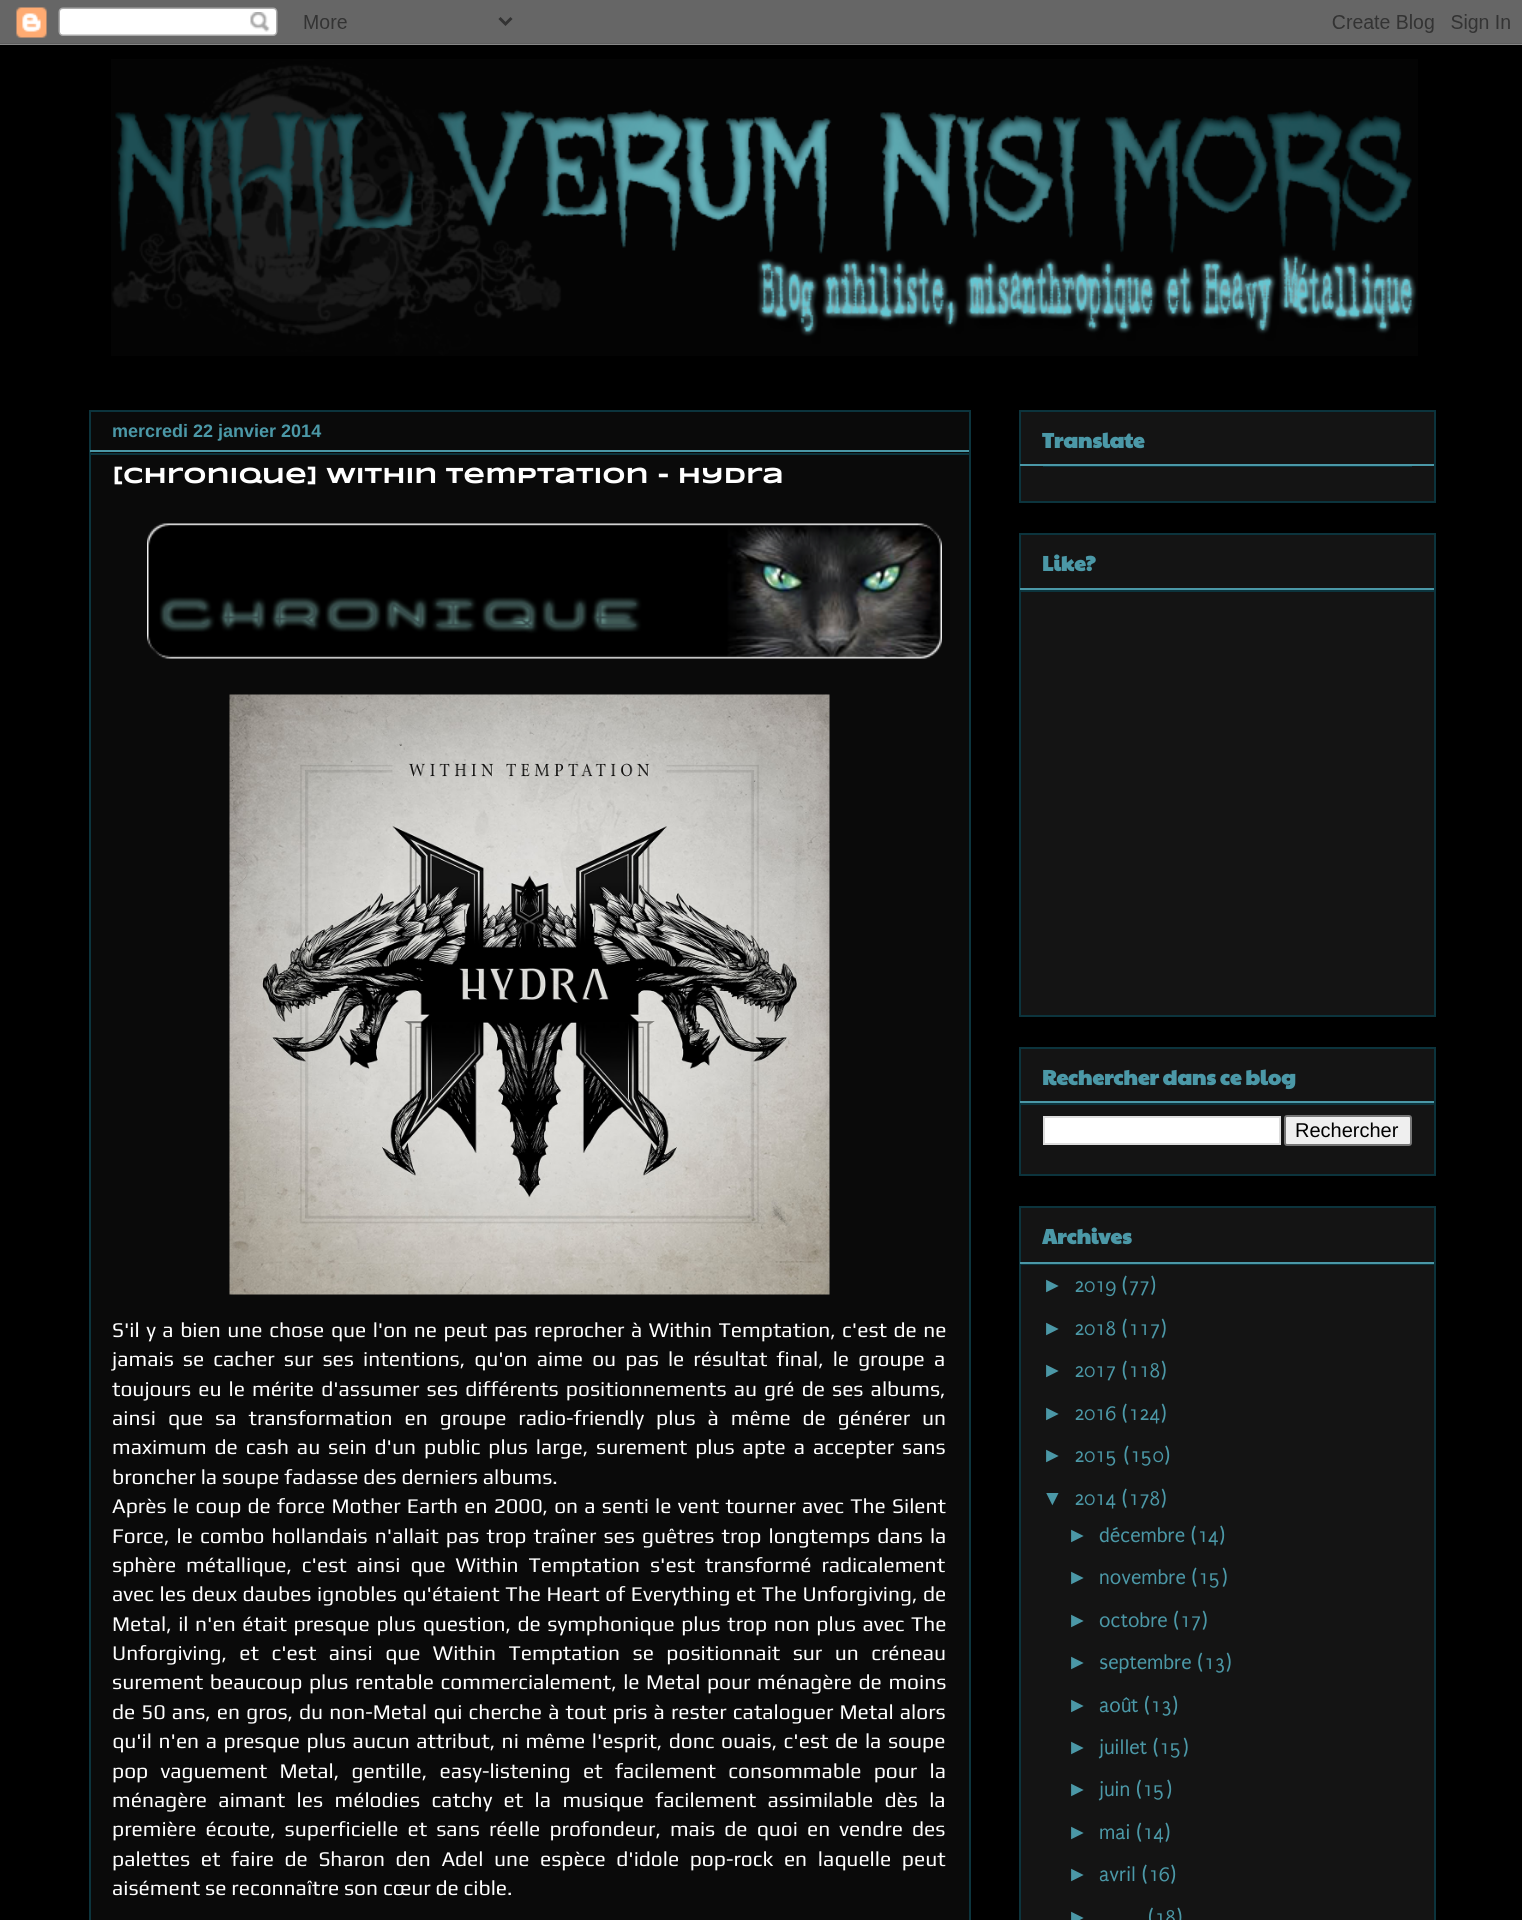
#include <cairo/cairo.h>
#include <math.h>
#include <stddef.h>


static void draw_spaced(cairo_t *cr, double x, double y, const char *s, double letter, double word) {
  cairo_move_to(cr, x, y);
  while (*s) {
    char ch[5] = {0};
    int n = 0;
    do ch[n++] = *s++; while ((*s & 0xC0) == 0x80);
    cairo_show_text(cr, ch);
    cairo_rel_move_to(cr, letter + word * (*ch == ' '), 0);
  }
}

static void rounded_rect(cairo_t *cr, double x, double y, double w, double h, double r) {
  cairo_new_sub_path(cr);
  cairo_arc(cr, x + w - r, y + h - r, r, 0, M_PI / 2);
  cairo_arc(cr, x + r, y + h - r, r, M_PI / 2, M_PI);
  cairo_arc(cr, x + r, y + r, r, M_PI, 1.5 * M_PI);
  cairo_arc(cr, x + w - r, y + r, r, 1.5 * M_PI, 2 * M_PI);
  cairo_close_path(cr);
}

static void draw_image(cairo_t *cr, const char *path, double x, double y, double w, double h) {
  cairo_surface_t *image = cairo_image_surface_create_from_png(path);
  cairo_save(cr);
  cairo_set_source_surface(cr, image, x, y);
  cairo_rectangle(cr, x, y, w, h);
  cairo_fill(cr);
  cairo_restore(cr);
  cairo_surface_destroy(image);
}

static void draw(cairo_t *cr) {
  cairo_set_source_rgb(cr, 0, 0, 0);
  cairo_paint(cr);
  draw_image(cr, "images/1.png", 0, 0, 1522, 45);
  draw_image(cr, "images/2.png", 111, 59, 1307, 297);
  cairo_set_source_rgb(cr, 10 / 255.0, 10 / 255.0, 10 / 255.0);
  cairo_rectangle(cr, 90, 411, 880, 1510);
  cairo_fill_preserve(cr);
  cairo_set_source_rgb(cr, 12 / 255.0, 52 / 255.0, 61 / 255.0);
  cairo_stroke(cr);
  cairo_set_source_rgb(cr, 75 / 255.0, 152 / 255.0, 167 / 255.0);
  cairo_rectangle(cr, 90, 450, 879, 2);
  cairo_fill(cr);
  cairo_set_source_rgb(cr, 12 / 255.0, 52 / 255.0, 61 / 255.0);
  cairo_rectangle(cr, 90, 453, 879, 2);
  cairo_fill(cr);
  draw_image(cr, "images/3.png", 147, 523, 795, 136);
  draw_image(cr, "images/4.png", 229, 694, 601, 601);
  cairo_set_source_rgb(cr, 20 / 255.0, 20 / 255.0, 20 / 255.0);
  cairo_rectangle(cr, 1020, 411, 415, 91);
  cairo_fill_preserve(cr);
  cairo_set_source_rgb(cr, 12 / 255.0, 52 / 255.0, 61 / 255.0);
  cairo_stroke(cr);
  cairo_set_source_rgb(cr, 75 / 255.0, 152 / 255.0, 167 / 255.0);
  cairo_rectangle(cr, 1020, 464, 414, 2);
  cairo_fill(cr);
  cairo_set_source_rgb(cr, 12 / 255.0, 52 / 255.0, 61 / 255.0);
  cairo_rectangle(cr, 1043, 466, 369, 1);
  cairo_fill(cr);
  cairo_set_source_rgb(cr, 20 / 255.0, 20 / 255.0, 20 / 255.0);
  cairo_rectangle(cr, 1020, 534, 415, 482);
  cairo_fill_preserve(cr);
  cairo_set_source_rgb(cr, 12 / 255.0, 52 / 255.0, 61 / 255.0);
  cairo_stroke(cr);
  cairo_set_source_rgb(cr, 75 / 255.0, 152 / 255.0, 167 / 255.0);
  cairo_rectangle(cr, 1020, 588, 414, 2);
  cairo_fill(cr);
  cairo_set_source_rgb(cr, 12 / 255.0, 52 / 255.0, 61 / 255.0);
  cairo_rectangle(cr, 1020, 590, 414, 2);
  cairo_fill(cr);
  cairo_set_source_rgb(cr, 20 / 255.0, 20 / 255.0, 20 / 255.0);
  cairo_rectangle(cr, 1020, 1048, 415, 127);
  cairo_fill_preserve(cr);
  cairo_set_source_rgb(cr, 12 / 255.0, 52 / 255.0, 61 / 255.0);
  cairo_stroke(cr);
  cairo_set_source_rgb(cr, 75 / 255.0, 152 / 255.0, 167 / 255.0);
  cairo_rectangle(cr, 1020, 1101, 414, 2);
  cairo_fill(cr);
  cairo_set_source_rgb(cr, 12 / 255.0, 52 / 255.0, 61 / 255.0);
  cairo_rectangle(cr, 1020, 1103, 414, 2);
  cairo_fill(cr);
  cairo_set_source_rgb(cr, 1, 1, 1);
  cairo_rectangle(cr, 1044, 1117, 236, 27);
  cairo_fill_preserve(cr);
  cairo_set_source_rgb(cr, 221 / 255.0, 221 / 255.0, 221 / 255.0);
  cairo_stroke(cr);
  cairo_set_source_rgb(cr, 239 / 255.0, 239 / 255.0, 239 / 255.0);
  rounded_rect(cr, 1285, 1116, 126, 29, 2);
  cairo_fill_preserve(cr);
  cairo_set_source_rgb(cr, 118 / 255.0, 118 / 255.0, 118 / 255.0);
  cairo_stroke(cr);
  cairo_set_source_rgb(cr, 20 / 255.0, 20 / 255.0, 20 / 255.0);
  cairo_rectangle(cr, 1020, 1207, 415, 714);
  cairo_fill_preserve(cr);
  cairo_set_source_rgb(cr, 12 / 255.0, 52 / 255.0, 61 / 255.0);
  cairo_stroke(cr);
  cairo_set_source_rgb(cr, 75 / 255.0, 152 / 255.0, 167 / 255.0);
  cairo_rectangle(cr, 1020, 1262, 414, 2);
  cairo_fill(cr);
  cairo_set_source_rgb(cr, 12 / 255.0, 52 / 255.0, 61 / 255.0);
  cairo_rectangle(cr, 1020, 1264, 414, 1);
  cairo_fill(cr);
  cairo_select_font_face(cr, "Liberation Sans", CAIRO_FONT_SLANT_NORMAL, CAIRO_FONT_WEIGHT_BOLD);
  cairo_set_font_size(cr, 18);
  cairo_set_source_rgb(cr, 75 / 255.0, 152 / 255.0, 167 / 255.0);
  cairo_move_to(cr, 112, 437);
  cairo_show_text(cr, "mercredi 22 janvier 2014");
  cairo_select_font_face(cr, "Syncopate", CAIRO_FONT_SLANT_NORMAL, CAIRO_FONT_WEIGHT_BOLD);
  cairo_set_font_size(cr, 22.5);
  cairo_set_source_rgb(cr, 1, 1, 1);
  cairo_move_to(cr, 112, 483);
  cairo_show_text(cr, "[Chronique] Within Temptation - Hydra");
  cairo_select_font_face(cr, "Play", CAIRO_FONT_SLANT_NORMAL, CAIRO_FONT_WEIGHT_NORMAL);
  cairo_set_font_size(cr, 21);
  draw_spaced(cr, 112, 1337, "S'il y a bien une chose que l'on ne peut pas reprocher à Within Temptation, c'est de ne", 0, 1.7);
  draw_spaced(cr, 112, 1366, "jamais se cacher sur ses intentions, qu'on aime ou pas le résultat final, le groupe a", 0, 4.25);
  draw_spaced(cr, 112, 1396, "toujours eu le mérite d'assumer ses différents positionnements au gré de ses albums,", 0, 2.25);
  draw_spaced(cr, 112, 1425, "ainsi que sa transformation en groupe radio-friendly plus à même de générer un", 0, 7.1);
  draw_spaced(cr, 112, 1454, "maximum de cash au sein d'un public plus large, surement plus apte a accepter sans", 0, 3.1);
  cairo_move_to(cr, 112, 1484);
  cairo_show_text(cr, "broncher la soupe fadasse des derniers albums.");
  draw_spaced(cr, 112, 1513, "Après le coup de force Mother Earth en 2000, on a senti le vent tourner avec The Silent", 0, 1.4);
  draw_spaced(cr, 112, 1543, "Force, le combo hollandais n'allait pas trop traîner ses guêtres trop longtemps dans la", 0, 2.25);
  draw_spaced(cr, 112, 1572, "sphère métallique, c'est ainsi que Within Temptation s'est transformé radicalement", 0, 5);
  draw_spaced(cr, 112, 1601, "avec les deux daubes ignobles qu'étaient The Heart of Everything et The Unforgiving, de", 0, 0.75);
  draw_spaced(cr, 112, 1631, "Metal, il n'en était presque plus question, de symphonique plus trop non plus avec The", 0, 1.75);
  draw_spaced(cr, 112, 1660, "Unforgiving, et c'est ainsi que Within Temptation se positionnait sur un créneau", 0, 7.6);
  draw_spaced(cr, 112, 1689, "surement beaucoup plus rentable commercialement, le Metal pour ménagère de moins", 0, 1.75);
  draw_spaced(cr, 112, 1719, "de 50 ans, en gros, du non-Metal qui cherche à tout pris à rester cataloguer Metal alors", 0, 1.3);
  draw_spaced(cr, 112, 1748, "qu'il n'en a presque plus aucun attribut, ni même l'esprit, donc ouais, c'est de la soupe", 0, 1.75);
  draw_spaced(cr, 112, 1778, "pop vaguement Metal, gentille, easy-listening et facilement consommable pour la", 0, 7.5);
  draw_spaced(cr, 112, 1807, "ménagère aimant les mélodies catchy et la musique facilement assimilable dès la", 0, 6.5);
  draw_spaced(cr, 112, 1836, "première écoute, superficielle et sans réelle profondeur, mais de quoi en vendre des", 0, 4.25);
  draw_spaced(cr, 112, 1866, "palettes et faire de Sharon den Adel une espèce d'idole pop-rock en laquelle peut", 0, 5.75);
  cairo_move_to(cr, 112, 1895);
  cairo_show_text(cr, "aisément se reconnaître son cœur de cible.");
  cairo_select_font_face(cr, "Paytone One", CAIRO_FONT_SLANT_NORMAL, CAIRO_FONT_WEIGHT_BOLD);
  cairo_set_source_rgb(cr, 75 / 255.0, 152 / 255.0, 167 / 255.0);
  cairo_move_to(cr, 1042, 448);
  cairo_show_text(cr, "Translate");
  cairo_move_to(cr, 1042, 571);
  cairo_show_text(cr, "Like?");
  cairo_move_to(cr, 1042, 1085);
  cairo_show_text(cr, "Rechercher dans ce blog");
  cairo_select_font_face(cr, "Liberation Sans", CAIRO_FONT_SLANT_NORMAL, CAIRO_FONT_WEIGHT_NORMAL);
  cairo_set_font_size(cr, 20);
  cairo_set_source_rgb(cr, 0, 0, 0);
  cairo_move_to(cr, 1295, 1137);
  cairo_show_text(cr, "Rechercher");
  cairo_select_font_face(cr, "Paytone One", CAIRO_FONT_SLANT_NORMAL, CAIRO_FONT_WEIGHT_BOLD);
  cairo_set_font_size(cr, 21);
  cairo_set_source_rgb(cr, 75 / 255.0, 152 / 255.0, 167 / 255.0);
  cairo_move_to(cr, 1042, 1244);
  cairo_show_text(cr, "Archives");
  cairo_select_font_face(cr, "Liberation Sans", CAIRO_FONT_SLANT_NORMAL, CAIRO_FONT_WEIGHT_NORMAL);
  cairo_move_to(cr, 1042, 1292);
  cairo_show_text(cr, "►");
  cairo_select_font_face(cr, "Puritan", CAIRO_FONT_SLANT_NORMAL, CAIRO_FONT_WEIGHT_NORMAL);
  cairo_move_to(cr, 1074, 1292);
  cairo_show_text(cr, "2019 (77)");
  cairo_select_font_face(cr, "Liberation Sans", CAIRO_FONT_SLANT_NORMAL, CAIRO_FONT_WEIGHT_NORMAL);
  cairo_move_to(cr, 1042, 1335);
  cairo_show_text(cr, "►");
  cairo_select_font_face(cr, "Puritan", CAIRO_FONT_SLANT_NORMAL, CAIRO_FONT_WEIGHT_NORMAL);
  cairo_move_to(cr, 1074, 1335);
  cairo_show_text(cr, "2018 (117)");
  cairo_select_font_face(cr, "Liberation Sans", CAIRO_FONT_SLANT_NORMAL, CAIRO_FONT_WEIGHT_NORMAL);
  cairo_move_to(cr, 1042, 1377);
  cairo_show_text(cr, "►");
  cairo_select_font_face(cr, "Puritan", CAIRO_FONT_SLANT_NORMAL, CAIRO_FONT_WEIGHT_NORMAL);
  cairo_move_to(cr, 1074, 1377);
  cairo_show_text(cr, "2017 (118)");
  cairo_select_font_face(cr, "Liberation Sans", CAIRO_FONT_SLANT_NORMAL, CAIRO_FONT_WEIGHT_NORMAL);
  cairo_move_to(cr, 1042, 1420);
  cairo_show_text(cr, "►");
  cairo_select_font_face(cr, "Puritan", CAIRO_FONT_SLANT_NORMAL, CAIRO_FONT_WEIGHT_NORMAL);
  cairo_move_to(cr, 1074, 1420);
  cairo_show_text(cr, "2016 (124)");
  cairo_select_font_face(cr, "Liberation Sans", CAIRO_FONT_SLANT_NORMAL, CAIRO_FONT_WEIGHT_NORMAL);
  cairo_move_to(cr, 1042, 1462);
  cairo_show_text(cr, "►");
  cairo_select_font_face(cr, "Puritan", CAIRO_FONT_SLANT_NORMAL, CAIRO_FONT_WEIGHT_NORMAL);
  cairo_move_to(cr, 1074, 1462);
  cairo_show_text(cr, "2015 (150)");
  cairo_select_font_face(cr, "Liberation Sans", CAIRO_FONT_SLANT_NORMAL, CAIRO_FONT_WEIGHT_NORMAL);
  cairo_move_to(cr, 1042, 1505);
  cairo_show_text(cr, "▼");
  cairo_select_font_face(cr, "Puritan", CAIRO_FONT_SLANT_NORMAL, CAIRO_FONT_WEIGHT_NORMAL);
  cairo_move_to(cr, 1074, 1505);
  cairo_show_text(cr, "2014 (178)");
  cairo_select_font_face(cr, "Liberation Sans", CAIRO_FONT_SLANT_NORMAL, CAIRO_FONT_WEIGHT_NORMAL);
  cairo_move_to(cr, 1067, 1542);
  cairo_show_text(cr, "►");
  cairo_select_font_face(cr, "Puritan", CAIRO_FONT_SLANT_NORMAL, CAIRO_FONT_WEIGHT_NORMAL);
  cairo_move_to(cr, 1099, 1542);
  cairo_show_text(cr, "décembre (14)");
  cairo_select_font_face(cr, "Liberation Sans", CAIRO_FONT_SLANT_NORMAL, CAIRO_FONT_WEIGHT_NORMAL);
  cairo_move_to(cr, 1067, 1584);
  cairo_show_text(cr, "►");
  cairo_select_font_face(cr, "Puritan", CAIRO_FONT_SLANT_NORMAL, CAIRO_FONT_WEIGHT_NORMAL);
  cairo_move_to(cr, 1099, 1584);
  cairo_show_text(cr, "novembre (15)");
  cairo_select_font_face(cr, "Liberation Sans", CAIRO_FONT_SLANT_NORMAL, CAIRO_FONT_WEIGHT_NORMAL);
  cairo_move_to(cr, 1067, 1627);
  cairo_show_text(cr, "►");
  cairo_select_font_face(cr, "Puritan", CAIRO_FONT_SLANT_NORMAL, CAIRO_FONT_WEIGHT_NORMAL);
  cairo_move_to(cr, 1099, 1627);
  cairo_show_text(cr, "octobre (17)");
  cairo_select_font_face(cr, "Liberation Sans", CAIRO_FONT_SLANT_NORMAL, CAIRO_FONT_WEIGHT_NORMAL);
  cairo_move_to(cr, 1067, 1669);
  cairo_show_text(cr, "►");
  cairo_select_font_face(cr, "Puritan", CAIRO_FONT_SLANT_NORMAL, CAIRO_FONT_WEIGHT_NORMAL);
  cairo_move_to(cr, 1099, 1669);
  cairo_show_text(cr, "septembre (13)");
  cairo_select_font_face(cr, "Liberation Sans", CAIRO_FONT_SLANT_NORMAL, CAIRO_FONT_WEIGHT_NORMAL);
  cairo_move_to(cr, 1067, 1712);
  cairo_show_text(cr, "►");
  cairo_select_font_face(cr, "Puritan", CAIRO_FONT_SLANT_NORMAL, CAIRO_FONT_WEIGHT_NORMAL);
  cairo_move_to(cr, 1099, 1712);
  cairo_show_text(cr, "août (13)");
  cairo_select_font_face(cr, "Liberation Sans", CAIRO_FONT_SLANT_NORMAL, CAIRO_FONT_WEIGHT_NORMAL);
  cairo_move_to(cr, 1067, 1754);
  cairo_show_text(cr, "►");
  cairo_select_font_face(cr, "Puritan", CAIRO_FONT_SLANT_NORMAL, CAIRO_FONT_WEIGHT_NORMAL);
  cairo_move_to(cr, 1099, 1754);
  cairo_show_text(cr, "juillet (15)");
  cairo_select_font_face(cr, "Liberation Sans", CAIRO_FONT_SLANT_NORMAL, CAIRO_FONT_WEIGHT_NORMAL);
  cairo_move_to(cr, 1067, 1796);
  cairo_show_text(cr, "►");
  cairo_select_font_face(cr, "Puritan", CAIRO_FONT_SLANT_NORMAL, CAIRO_FONT_WEIGHT_NORMAL);
  cairo_move_to(cr, 1099, 1796);
  cairo_show_text(cr, "juin (15)");
  cairo_select_font_face(cr, "Liberation Sans", CAIRO_FONT_SLANT_NORMAL, CAIRO_FONT_WEIGHT_NORMAL);
  cairo_move_to(cr, 1067, 1839);
  cairo_show_text(cr, "►");
  cairo_select_font_face(cr, "Puritan", CAIRO_FONT_SLANT_NORMAL, CAIRO_FONT_WEIGHT_NORMAL);
  cairo_move_to(cr, 1099, 1839);
  cairo_show_text(cr, "mai (14)");
  cairo_select_font_face(cr, "Liberation Sans", CAIRO_FONT_SLANT_NORMAL, CAIRO_FONT_WEIGHT_NORMAL);
  cairo_move_to(cr, 1067, 1881);
  cairo_show_text(cr, "►");
  cairo_select_font_face(cr, "Puritan", CAIRO_FONT_SLANT_NORMAL, CAIRO_FONT_WEIGHT_NORMAL);
  cairo_move_to(cr, 1099, 1881);
  cairo_show_text(cr, "avril (16)");
  cairo_select_font_face(cr, "Liberation Sans", CAIRO_FONT_SLANT_NORMAL, CAIRO_FONT_WEIGHT_NORMAL);
  cairo_move_to(cr, 1067, 1924);
  cairo_show_text(cr, "►");
  cairo_select_font_face(cr, "Puritan", CAIRO_FONT_SLANT_NORMAL, CAIRO_FONT_WEIGHT_NORMAL);
  cairo_move_to(cr, 1148, 1924);
  cairo_show_text(cr, "(18)");
}

int main(void) {
  cairo_surface_t *surface = cairo_image_surface_create(CAIRO_FORMAT_RGB24, 1522, 1920);
  cairo_t *cr = cairo_create(surface);
  cairo_font_options_t *options = cairo_font_options_create();
  cairo_font_options_set_hint_metrics(options, CAIRO_HINT_METRICS_OFF);
  cairo_font_options_set_hint_style(options, CAIRO_HINT_STYLE_NONE);
  cairo_set_font_options(cr, options);
  cairo_set_miter_limit(cr, 4);
  draw(cr);
  cairo_surface_write_to_png(surface, "out.png");
  cairo_font_options_destroy(options);
  cairo_destroy(cr);
  cairo_surface_destroy(surface);
  return 0;
}
